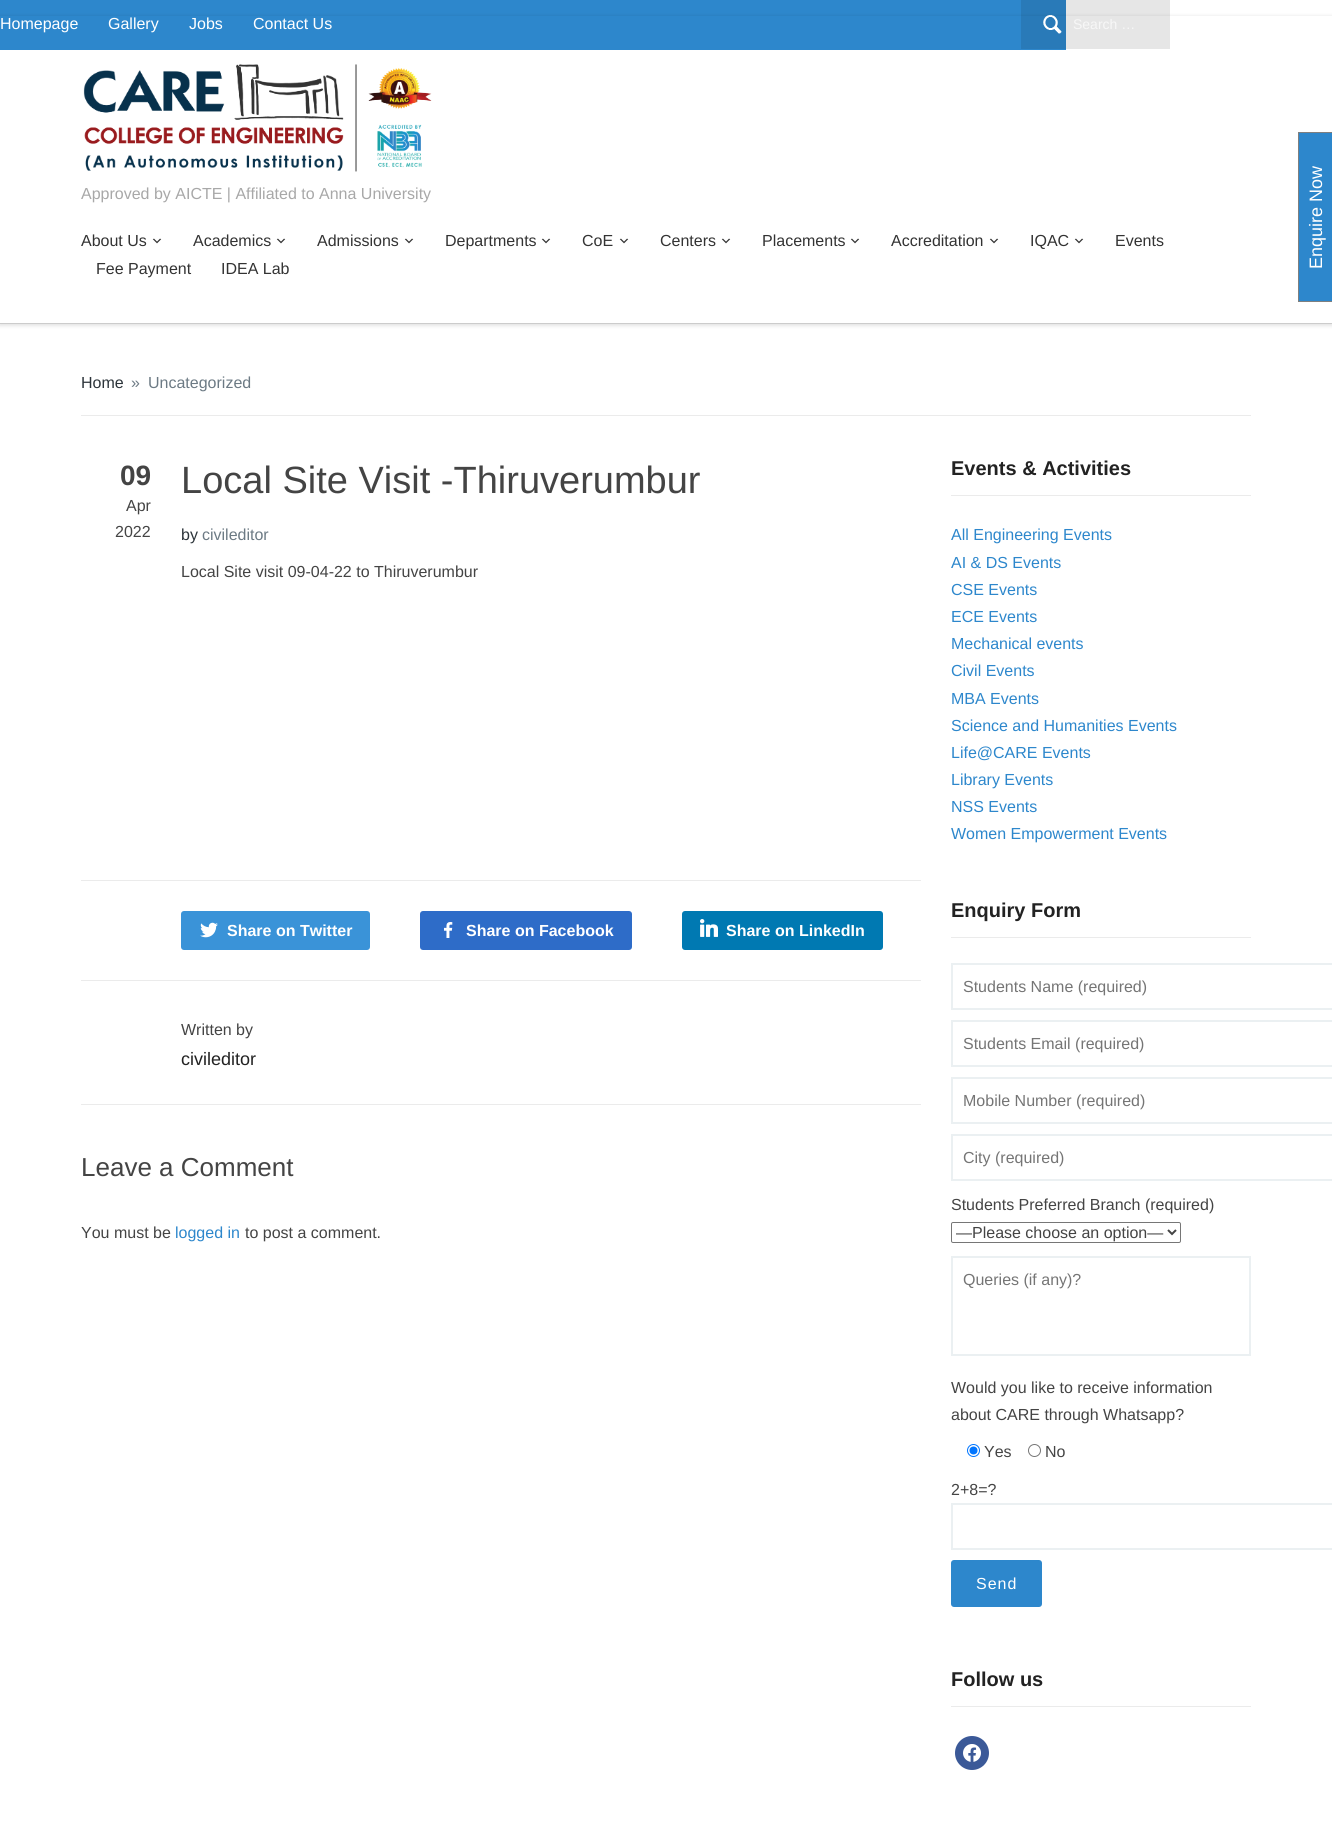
#include <cairo/cairo.h>
#include <math.h>
#include <stddef.h>


static void draw_spaced(cairo_t *cr, double x, double y, const char *s, double letter, double word) {
  cairo_move_to(cr, x, y);
  while (*s) {
    char ch[5] = {0};
    int n = 0;
    do ch[n++] = *s++; while ((*s & 0xC0) == 0x80);
    cairo_show_text(cr, ch);
    cairo_rel_move_to(cr, letter + word * (*ch == ' '), 0);
  }
}

static void rounded_rect(cairo_t *cr, double x, double y, double w, double h, double r) {
  cairo_new_sub_path(cr);
  cairo_arc(cr, x + w - r, y + h - r, r, 0, M_PI / 2);
  cairo_arc(cr, x + r, y + h - r, r, M_PI / 2, M_PI);
  cairo_arc(cr, x + r, y + r, r, M_PI, 1.5 * M_PI);
  cairo_arc(cr, x + w - r, y + r, r, 1.5 * M_PI, 2 * M_PI);
  cairo_close_path(cr);
}

static void draw_shadow(cairo_t *cr, double x, double y, double w, double h, double r, double blur, double alpha) {
  cairo_push_group_with_content(cr, CAIRO_CONTENT_ALPHA);
  cairo_set_operator(cr, CAIRO_OPERATOR_SOURCE);
  for (int i = 15; i >= -15 && fmin(w, h) + blur * i / 3 > 0; i -= 2) {
    double e = blur * i / 6;
    cairo_set_source_rgba(cr, 0, 0, 0, alpha * erfc((i - 1) / 8.5) / 2);
    rounded_rect(cr, x - e, y - e, w + 2 * e, h + 2 * e, fmax(0, fmin(r + e + blur * .6, fmin(w, h) / 2 + e)));
    cairo_fill(cr);
  }
  cairo_pattern_t *soft = cairo_pop_group(cr);
  cairo_mask(cr, soft);
  cairo_pattern_destroy(soft);
}

static void draw_image(cairo_t *cr, const char *path, double x, double y, double w, double h) {
  cairo_surface_t *image = cairo_image_surface_create_from_png(path);
  cairo_save(cr);
  cairo_set_source_surface(cr, image, x, y);
  cairo_rectangle(cr, x, y, w, h);
  cairo_fill(cr);
  cairo_restore(cr);
  cairo_surface_destroy(image);
}

static void draw(cairo_t *cr) {
  cairo_set_source_rgb(cr, 1, 1, 1);
  cairo_paint(cr);
  cairo_set_source_rgb(cr, 230 / 255.0, 230 / 255.0, 230 / 255.0);
  cairo_rectangle(cr, 1066, 0, 104, 49);
  cairo_fill(cr);
  cairo_set_source_rgb(cr, 45 / 255.0, 135 / 255.0, 204 / 255.0);
  cairo_rectangle(cr, 0, 0, 1066, 50);
  cairo_fill(cr);
  cairo_set_source_rgb(cr, 41 / 255.0, 122 / 255.0, 184 / 255.0);
  cairo_rectangle(cr, 1021, 0, 45, 49);
  cairo_fill(cr);
  draw_image(cr, "images/1.png", 1043, 15, 19, 19);
  cairo_save(cr);
  cairo_set_fill_rule(cr, CAIRO_FILL_RULE_EVEN_ODD);
  cairo_new_path(cr);
  cairo_move_to(cr, 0, 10);
  cairo_line_to(cr, 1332, 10);
  cairo_line_to(cr, 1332, 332);
  cairo_line_to(cr, 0, 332);
  cairo_close_path(cr);
  cairo_move_to(cr, 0, 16);
  cairo_line_to(cr, 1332, 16);
  cairo_line_to(cr, 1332, 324);
  cairo_line_to(cr, 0, 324);
  cairo_close_path(cr);
  cairo_clip(cr);
  cairo_set_source_rgb(cr, 0, 0, 0);
  draw_shadow(cr, -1, 16, 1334, 310, 0, 1.5, 0.1);
  cairo_restore(cr);
  cairo_set_source_rgb(cr, 204 / 255.0, 204 / 255.0, 204 / 255.0);
  cairo_rectangle(cr, 0, 323, 1332, 1);
  cairo_fill(cr);
  draw_image(cr, "images/2.png", 83, 64, 349, 108);
  draw_image(cr, "images/3.png", 152, 238, 10, 6);
  draw_image(cr, "images/3.png", 276, 238, 10, 6);
  draw_image(cr, "images/3.png", 404, 238, 10, 6);
  draw_image(cr, "images/3.png", 541, 238, 10, 6);
  draw_image(cr, "images/3.png", 619, 238, 10, 6);
  draw_image(cr, "images/3.png", 721, 238, 10, 6);
  draw_image(cr, "images/3.png", 850, 238, 10, 6);
  draw_image(cr, "images/3.png", 989, 238, 10, 6);
  draw_image(cr, "images/3.png", 1074, 238, 10, 6);
  cairo_set_source_rgb(cr, 235 / 255.0, 235 / 255.0, 235 / 255.0);
  cairo_rectangle(cr, 81, 415, 1170, 1);
  cairo_fill(cr);
  cairo_rectangle(cr, 81, 880, 840, 1);
  cairo_fill(cr);
  cairo_rectangle(cr, 81, 980, 840, 1);
  cairo_fill(cr);
  cairo_set_source_rgb(cr, 58 / 255.0, 147 / 255.0, 216 / 255.0);
  rounded_rect(cr, 181, 911, 189, 39, 3);
  cairo_fill(cr);
  draw_image(cr, "images/4.png", 200, 922, 18, 16);
  cairo_set_source_rgb(cr, 46 / 255.0, 108 / 255.0, 200 / 255.0);
  rounded_rect(cr, 420, 911, 212, 39, 3);
  cairo_fill(cr);
  draw_image(cr, "images/5.png", 444, 922, 9, 16);
  cairo_set_source_rgb(cr, 0, 121 / 255.0, 178 / 255.0);
  rounded_rect(cr, 682, 911, 201, 39, 3);
  cairo_fill(cr);
  draw_image(cr, "images/6.png", 700, 919, 18, 18);
  cairo_set_source_rgb(cr, 235 / 255.0, 235 / 255.0, 235 / 255.0);
  cairo_rectangle(cr, 81, 1104, 840, 1);
  cairo_fill(cr);
  cairo_rectangle(cr, 951, 495, 300, 1);
  cairo_fill(cr);
  cairo_rectangle(cr, 951, 937, 300, 1);
  cairo_fill(cr);
  cairo_rectangle(cr, 952, 964, 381, 45);
  cairo_set_source_rgb(cr, 235 / 255.0, 240 / 255.0, 242 / 255.0);
  cairo_stroke(cr);
  cairo_rectangle(cr, 952, 1021, 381, 45);
  cairo_stroke(cr);
  cairo_rectangle(cr, 952, 1078, 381, 45);
  cairo_stroke(cr);
  cairo_rectangle(cr, 952, 1135, 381, 45);
  cairo_stroke(cr);
  rounded_rect(cr, 951.5, 1222.5, 229, 20, 1.5);
  cairo_set_source_rgb(cr, 118 / 255.0, 118 / 255.0, 118 / 255.0);
  cairo_set_line_width(cr, 1);
  cairo_stroke(cr);
  cairo_new_path(cr);
  cairo_move_to(cr, 1168, 1230);
  cairo_line_to(cr, 1172, 1234);
  cairo_line_to(cr, 1176, 1230);
  cairo_set_source_rgb(cr, 68 / 255.0, 68 / 255.0, 68 / 255.0);
  cairo_set_line_width(cr, 2);
  cairo_stroke(cr);
  cairo_rectangle(cr, 952, 1257, 298, 98);
  cairo_set_source_rgb(cr, 235 / 255.0, 240 / 255.0, 242 / 255.0);
  cairo_stroke(cr);
  cairo_arc(cr, 973.5, 1450.5, 6, 0, 2 * M_PI);
  cairo_set_source_rgb(cr, 0, 117 / 255.0, 1);
  cairo_set_line_width(cr, 1);
  cairo_stroke(cr);
  cairo_arc(cr, 973.5, 1450.5, 4, 0, 2 * M_PI);
  cairo_fill(cr);
  cairo_arc(cr, 1034.5, 1450.5, 6, 0, 2 * M_PI);
  cairo_set_source_rgb(cr, 118 / 255.0, 118 / 255.0, 118 / 255.0);
  cairo_stroke(cr);
  cairo_rectangle(cr, 952, 1504, 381, 45);
  cairo_set_source_rgb(cr, 235 / 255.0, 240 / 255.0, 242 / 255.0);
  cairo_set_line_width(cr, 2);
  cairo_stroke(cr);
  cairo_set_source_rgb(cr, 45 / 255.0, 135 / 255.0, 204 / 255.0);
  rounded_rect(cr, 951, 1560, 91, 47, 3);
  cairo_fill(cr);
  cairo_set_source_rgb(cr, 235 / 255.0, 235 / 255.0, 235 / 255.0);
  cairo_rectangle(cr, 951, 1706, 300, 1);
  cairo_fill(cr);
  cairo_set_source_rgb(cr, 59 / 255.0, 89 / 255.0, 152 / 255.0);
  cairo_arc(cr, 972, 1753, 17, 0, 2 * M_PI);
  cairo_fill(cr);
  draw_image(cr, "images/7.png", 963, 1744, 18, 18);
  cairo_set_source_rgb(cr, 45 / 255.0, 135 / 255.0, 204 / 255.0);
  cairo_rectangle(cr, 1299, 133, 33, 168);
  cairo_fill(cr);
  cairo_set_source_rgb(cr, 127 / 255.0, 127 / 255.0, 127 / 255.0);
  cairo_rectangle(cr, 1298, 132, 1, 170);
  cairo_fill(cr);
  cairo_rectangle(cr, 1298, 132, 34, 1);
  cairo_fill(cr);
  cairo_rectangle(cr, 1298, 301, 34, 1);
  cairo_fill(cr);
  cairo_select_font_face(cr, "Liberation Sans", CAIRO_FONT_SLANT_NORMAL, CAIRO_FONT_WEIGHT_NORMAL);
  cairo_set_font_size(cr, 16);
  cairo_set_source_rgb(cr, 1, 1, 1);
  cairo_move_to(cr, 0, 29);
  cairo_show_text(cr, "Homepage");
  cairo_move_to(cr, 108, 29);
  cairo_show_text(cr, "Gallery");
  cairo_move_to(cr, 189, 29);
  cairo_show_text(cr, "Jobs");
  cairo_move_to(cr, 253, 29);
  cairo_show_text(cr, "Contact Us");
  cairo_set_font_size(cr, 14);
  cairo_set_source_rgb(cr, 247 / 255.0, 247 / 255.0, 247 / 255.0);
  cairo_move_to(cr, 1073, 29);
  cairo_show_text(cr, "Search …");
  cairo_set_font_size(cr, 16);
  cairo_set_source_rgb(cr, 168 / 255.0, 168 / 255.0, 168 / 255.0);
  cairo_move_to(cr, 81, 199);
  cairo_show_text(cr, "Approved by AICTE | Affiliated to Anna University");
  cairo_set_source_rgb(cr, 51 / 255.0, 51 / 255.0, 51 / 255.0);
  cairo_move_to(cr, 81, 246);
  cairo_show_text(cr, "About Us");
  cairo_move_to(cr, 193, 246);
  cairo_show_text(cr, "Academics");
  cairo_move_to(cr, 317, 246);
  cairo_show_text(cr, "Admissions");
  cairo_move_to(cr, 445, 246);
  cairo_show_text(cr, "Departments");
  cairo_move_to(cr, 582, 246);
  cairo_show_text(cr, "CoE");
  cairo_move_to(cr, 660, 246);
  cairo_show_text(cr, "Centers");
  cairo_move_to(cr, 762, 246);
  cairo_show_text(cr, "Placements");
  cairo_move_to(cr, 891, 246);
  cairo_show_text(cr, "Accreditation");
  cairo_move_to(cr, 1030, 246);
  cairo_show_text(cr, "IQAC");
  cairo_move_to(cr, 1115, 246);
  cairo_show_text(cr, "Events");
  cairo_move_to(cr, 96, 274);
  cairo_show_text(cr, "Fee Payment");
  cairo_move_to(cr, 221, 274);
  cairo_show_text(cr, "IDEA Lab");
  cairo_set_source_rgb(cr, 44 / 255.0, 52 / 255.0, 58 / 255.0);
  cairo_move_to(cr, 81, 388);
  cairo_show_text(cr, "Home");
  cairo_set_source_rgb(cr, 108 / 255.0, 122 / 255.0, 132 / 255.0);
  cairo_move_to(cr, 131, 388);
  cairo_show_text(cr, "»");
  cairo_move_to(cr, 148, 388);
  cairo_show_text(cr, "Uncategorized");
  cairo_select_font_face(cr, "Liberation Sans", CAIRO_FONT_SLANT_NORMAL, CAIRO_FONT_WEIGHT_BOLD);
  cairo_set_font_size(cr, 28);
  cairo_set_source_rgb(cr, 68 / 255.0, 68 / 255.0, 68 / 255.0);
  cairo_move_to(cr, 120, 485);
  cairo_show_text(cr, "09");
  cairo_select_font_face(cr, "Liberation Sans", CAIRO_FONT_SLANT_NORMAL, CAIRO_FONT_WEIGHT_NORMAL);
  cairo_set_font_size(cr, 16);
  cairo_move_to(cr, 126, 511);
  cairo_show_text(cr, "Apr");
  cairo_move_to(cr, 115, 537);
  cairo_show_text(cr, "2022");
  cairo_set_font_size(cr, 38);
  cairo_move_to(cr, 181, 493);
  cairo_show_text(cr, "Local Site Visit -Thiruverumbur");
  cairo_set_font_size(cr, 16);
  cairo_set_source_rgb(cr, 44 / 255.0, 52 / 255.0, 58 / 255.0);
  cairo_move_to(cr, 181, 540);
  cairo_show_text(cr, "by");
  cairo_set_source_rgb(cr, 108 / 255.0, 122 / 255.0, 132 / 255.0);
  cairo_move_to(cr, 202, 540);
  cairo_show_text(cr, "civileditor");
  cairo_set_source_rgb(cr, 68 / 255.0, 68 / 255.0, 68 / 255.0);
  cairo_move_to(cr, 181, 577);
  cairo_show_text(cr, "Local Site visit 09-04-22 to Thiruverumbur");
  cairo_select_font_face(cr, "Liberation Sans", CAIRO_FONT_SLANT_NORMAL, CAIRO_FONT_WEIGHT_BOLD);
  cairo_set_source_rgb(cr, 1, 1, 1);
  cairo_move_to(cr, 227, 936);
  cairo_show_text(cr, "Share on Twitter");
  cairo_move_to(cr, 466, 936);
  cairo_show_text(cr, "Share on Facebook");
  cairo_move_to(cr, 726, 936);
  cairo_show_text(cr, "Share on LinkedIn");
  cairo_select_font_face(cr, "Liberation Sans", CAIRO_FONT_SLANT_NORMAL, CAIRO_FONT_WEIGHT_NORMAL);
  cairo_set_source_rgb(cr, 68 / 255.0, 68 / 255.0, 68 / 255.0);
  cairo_move_to(cr, 181, 1035);
  cairo_show_text(cr, "Written by");
  cairo_set_font_size(cr, 18);
  cairo_set_source_rgb(cr, 34 / 255.0, 34 / 255.0, 34 / 255.0);
  cairo_move_to(cr, 181, 1065);
  cairo_show_text(cr, "civileditor");
  cairo_set_font_size(cr, 26);
  cairo_set_source_rgb(cr, 68 / 255.0, 68 / 255.0, 68 / 255.0);
  cairo_move_to(cr, 81, 1176);
  cairo_show_text(cr, "Leave a Comment");
  cairo_set_font_size(cr, 16);
  cairo_move_to(cr, 81, 1238);
  cairo_show_text(cr, "You must be");
  cairo_set_source_rgb(cr, 45 / 255.0, 135 / 255.0, 204 / 255.0);
  cairo_move_to(cr, 175, 1238);
  cairo_show_text(cr, "logged in");
  cairo_set_source_rgb(cr, 68 / 255.0, 68 / 255.0, 68 / 255.0);
  cairo_move_to(cr, 245, 1238);
  cairo_show_text(cr, "to post a comment.");
  cairo_select_font_face(cr, "Liberation Sans", CAIRO_FONT_SLANT_NORMAL, CAIRO_FONT_WEIGHT_BOLD);
  cairo_set_font_size(cr, 20);
  cairo_set_source_rgb(cr, 34 / 255.0, 34 / 255.0, 34 / 255.0);
  cairo_move_to(cr, 951, 475);
  cairo_show_text(cr, "Events & Activities");
  cairo_select_font_face(cr, "Liberation Sans", CAIRO_FONT_SLANT_NORMAL, CAIRO_FONT_WEIGHT_NORMAL);
  cairo_set_font_size(cr, 16);
  cairo_set_source_rgb(cr, 45 / 255.0, 135 / 255.0, 204 / 255.0);
  cairo_move_to(cr, 951, 540);
  cairo_show_text(cr, "All Engineering Events");
  cairo_move_to(cr, 951, 568);
  cairo_show_text(cr, "AI & DS Events");
  cairo_move_to(cr, 951, 595);
  cairo_show_text(cr, "CSE Events");
  cairo_move_to(cr, 951, 622);
  cairo_show_text(cr, "ECE Events");
  cairo_move_to(cr, 951, 649);
  cairo_show_text(cr, "Mechanical events");
  cairo_move_to(cr, 951, 676);
  cairo_show_text(cr, "Civil Events");
  cairo_move_to(cr, 951, 704);
  cairo_show_text(cr, "MBA Events");
  cairo_move_to(cr, 951, 731);
  cairo_show_text(cr, "Science and Humanities Events");
  cairo_move_to(cr, 951, 758);
  cairo_show_text(cr, "Life@CARE Events");
  cairo_move_to(cr, 951, 785);
  cairo_show_text(cr, "Library Events");
  cairo_move_to(cr, 951, 812);
  cairo_show_text(cr, "NSS Events");
  cairo_move_to(cr, 951, 839);
  cairo_show_text(cr, "Women Empowerment Events");
  cairo_select_font_face(cr, "Liberation Sans", CAIRO_FONT_SLANT_NORMAL, CAIRO_FONT_WEIGHT_BOLD);
  cairo_set_font_size(cr, 20);
  cairo_set_source_rgb(cr, 34 / 255.0, 34 / 255.0, 34 / 255.0);
  cairo_move_to(cr, 951, 917);
  cairo_show_text(cr, "Enquiry Form");
  cairo_select_font_face(cr, "Liberation Sans", CAIRO_FONT_SLANT_NORMAL, CAIRO_FONT_WEIGHT_NORMAL);
  cairo_set_font_size(cr, 16);
  cairo_set_source_rgb(cr, 117 / 255.0, 117 / 255.0, 117 / 255.0);
  cairo_move_to(cr, 963, 992);
  cairo_show_text(cr, "Students Name (required)");
  cairo_move_to(cr, 963, 1049);
  cairo_show_text(cr, "Students Email (required)");
  cairo_move_to(cr, 963, 1106);
  cairo_show_text(cr, "Mobile Number (required)");
  cairo_move_to(cr, 963, 1163);
  cairo_show_text(cr, "City (required)");
  cairo_set_source_rgb(cr, 68 / 255.0, 68 / 255.0, 68 / 255.0);
  cairo_move_to(cr, 951, 1210);
  cairo_show_text(cr, "Students Preferred Branch (required)");
  cairo_move_to(cr, 956, 1238);
  cairo_show_text(cr, "—Please choose an option—");
  cairo_set_source_rgb(cr, 117 / 255.0, 117 / 255.0, 117 / 255.0);
  cairo_move_to(cr, 963, 1285);
  cairo_show_text(cr, "Queries (if any)?");
  cairo_set_source_rgb(cr, 68 / 255.0, 68 / 255.0, 68 / 255.0);
  cairo_move_to(cr, 951, 1393);
  cairo_show_text(cr, "Would you like to receive information");
  cairo_move_to(cr, 951, 1420);
  cairo_show_text(cr, "about CARE through Whatsapp?");
  cairo_move_to(cr, 984, 1457);
  cairo_show_text(cr, "Yes");
  cairo_move_to(cr, 1045, 1457);
  cairo_show_text(cr, "No");
  cairo_move_to(cr, 951, 1495);
  cairo_show_text(cr, "2+8=?");
  cairo_set_source_rgb(cr, 1, 1, 1);
  draw_spaced(cr, 976, 1589, "Send", 1, 0);
  cairo_select_font_face(cr, "Liberation Sans", CAIRO_FONT_SLANT_NORMAL, CAIRO_FONT_WEIGHT_BOLD);
  cairo_set_font_size(cr, 20);
  cairo_set_source_rgb(cr, 34 / 255.0, 34 / 255.0, 34 / 255.0);
  cairo_move_to(cr, 951, 1686);
  cairo_show_text(cr, "Follow us");
  cairo_select_font_face(cr, "Liberation Sans", CAIRO_FONT_SLANT_NORMAL, CAIRO_FONT_WEIGHT_NORMAL);
  cairo_set_font_size(cr, 18);
  cairo_set_source_rgb(cr, 1, 1, 1);
  cairo_save(cr);
  cairo_translate(cr, 1322, 269);
  cairo_rotate(cr, -90 * M_PI / 180);
  cairo_move_to(cr, 0, 0);
  cairo_show_text(cr, "Enquire Now");
  cairo_restore(cr);
}

int main(void) {
  cairo_surface_t *surface = cairo_image_surface_create(CAIRO_FORMAT_RGB24, 1332, 1828);
  cairo_t *cr = cairo_create(surface);
  cairo_font_options_t *options = cairo_font_options_create();
  cairo_font_options_set_hint_metrics(options, CAIRO_HINT_METRICS_OFF);
  cairo_font_options_set_hint_style(options, CAIRO_HINT_STYLE_NONE);
  cairo_set_font_options(cr, options);
  cairo_set_miter_limit(cr, 4);
  draw(cr);
  cairo_surface_write_to_png(surface, "out.png");
  cairo_font_options_destroy(options);
  cairo_destroy(cr);
  cairo_surface_destroy(surface);
  return 0;
}
